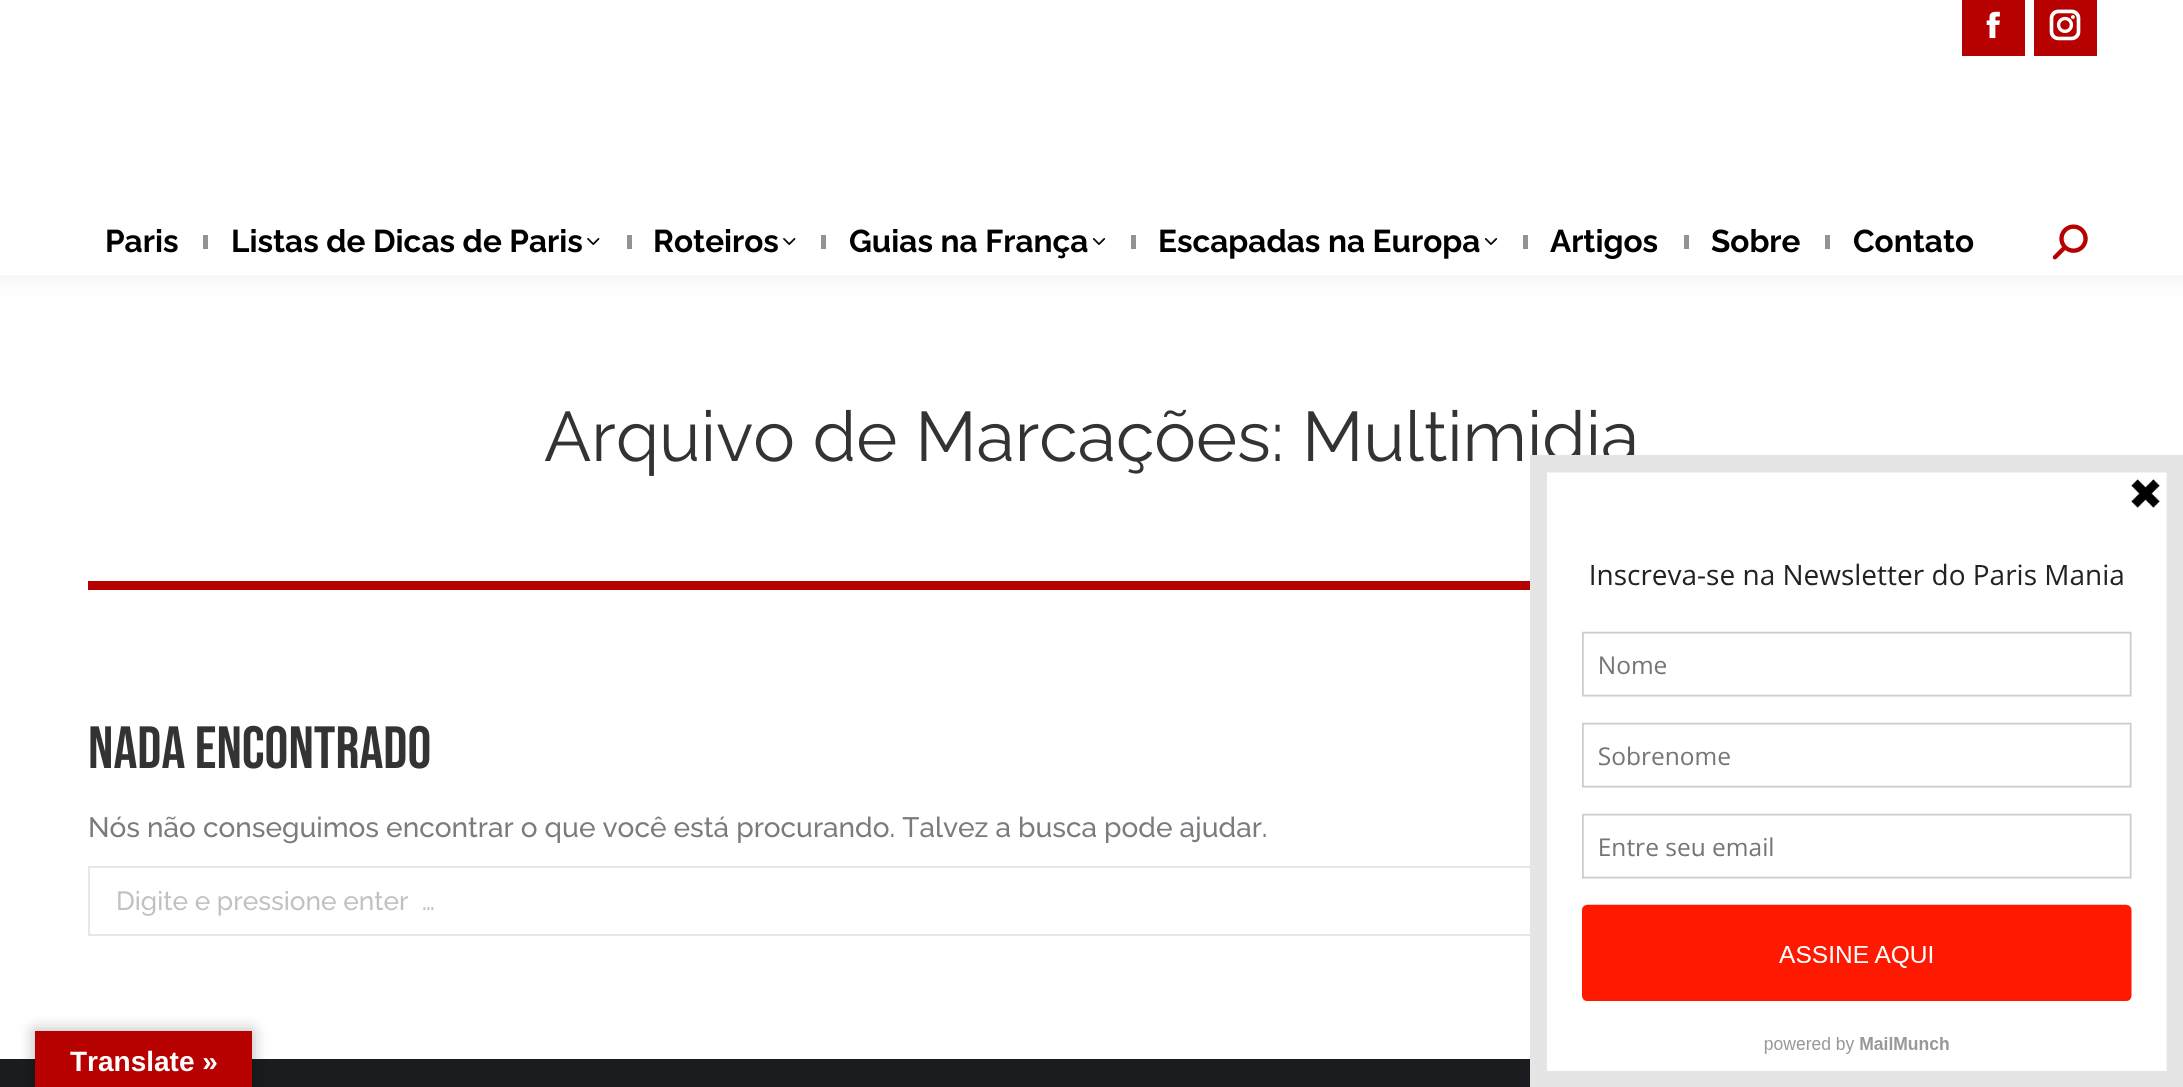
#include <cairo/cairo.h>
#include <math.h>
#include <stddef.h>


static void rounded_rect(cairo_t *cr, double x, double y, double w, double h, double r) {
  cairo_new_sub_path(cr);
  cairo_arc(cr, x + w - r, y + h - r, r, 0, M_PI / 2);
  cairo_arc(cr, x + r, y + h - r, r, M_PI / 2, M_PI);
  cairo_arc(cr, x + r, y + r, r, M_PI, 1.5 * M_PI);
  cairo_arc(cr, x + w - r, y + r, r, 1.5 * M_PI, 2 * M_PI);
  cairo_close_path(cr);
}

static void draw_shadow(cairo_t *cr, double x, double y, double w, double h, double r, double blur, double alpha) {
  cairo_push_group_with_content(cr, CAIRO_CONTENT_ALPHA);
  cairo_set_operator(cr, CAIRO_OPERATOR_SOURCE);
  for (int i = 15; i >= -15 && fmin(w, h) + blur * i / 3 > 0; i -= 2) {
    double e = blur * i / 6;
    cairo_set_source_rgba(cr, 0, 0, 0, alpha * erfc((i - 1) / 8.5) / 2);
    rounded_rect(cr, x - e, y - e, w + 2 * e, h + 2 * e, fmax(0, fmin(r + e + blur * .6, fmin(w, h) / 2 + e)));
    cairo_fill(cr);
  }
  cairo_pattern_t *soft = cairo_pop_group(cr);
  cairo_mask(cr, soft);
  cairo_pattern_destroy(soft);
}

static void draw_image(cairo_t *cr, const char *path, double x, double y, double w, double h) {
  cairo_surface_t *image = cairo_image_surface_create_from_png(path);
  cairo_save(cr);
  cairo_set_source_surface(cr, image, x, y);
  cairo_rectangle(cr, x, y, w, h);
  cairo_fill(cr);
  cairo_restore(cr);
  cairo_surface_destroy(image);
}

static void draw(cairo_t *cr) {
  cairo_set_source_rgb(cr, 1, 1, 1);
  cairo_paint(cr);
  cairo_set_source_rgb(cr, 0, 0, 0);
  draw_shadow(cr, -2, -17, 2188, 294, 0, 13, 0.07);
  cairo_set_source_rgb(cr, 1, 1, 1);
  cairo_rectangle(cr, 0, 0, 2183, 275);
  cairo_fill(cr);
  cairo_set_source_rgb(cr, 183 / 255.0, 0, 0);
  cairo_rectangle(cr, 1962, 0, 63, 56);
  cairo_fill(cr);
  draw_image(cr, "images/1.png", 1986, 11, 14, 28);
  cairo_rectangle(cr, 2034, 0, 63, 56);
  cairo_fill(cr);
  draw_image(cr, "images/2.png", 2049, 9, 32, 32);
  cairo_set_source_rgb(cr, 147 / 255.0, 147 / 255.0, 147 / 255.0);
  cairo_rectangle(cr, 203, 235, 5, 14);
  cairo_fill(cr);
  draw_image(cr, "images/3.png", 587, 238, 13, 7);
  cairo_rectangle(cr, 627, 235, 5, 14);
  cairo_fill(cr);
  draw_image(cr, "images/3.png", 783, 238, 13, 7);
  cairo_rectangle(cr, 821, 235, 5, 14);
  cairo_fill(cr);
  draw_image(cr, "images/4.png", 1092, 238, 14, 7);
  cairo_rectangle(cr, 1131, 235, 5, 14);
  cairo_fill(cr);
  draw_image(cr, "images/4.png", 1484, 238, 14, 7);
  cairo_rectangle(cr, 1523, 235, 5, 14);
  cairo_fill(cr);
  cairo_rectangle(cr, 1684, 235, 5, 14);
  cairo_fill(cr);
  cairo_rectangle(cr, 1825, 235, 5, 14);
  cairo_fill(cr);
  draw_image(cr, "images/5.png", 2052, 224, 36, 36);
  cairo_set_source_rgb(cr, 183 / 255.0, 0, 0);
  cairo_rectangle(cr, 88, 581, 1442, 9);
  cairo_fill(cr);
  cairo_rectangle(cr, 89, 867, 2007, 68);
  cairo_set_source_rgb(cr, 231 / 255.0, 231 / 255.0, 231 / 255.0);
  cairo_stroke(cr);
  cairo_set_source_rgb(cr, 26 / 255.0, 28 / 255.0, 32 / 255.0);
  cairo_rectangle(cr, 0, 1059, 1530, 28);
  cairo_fill(cr);
  cairo_set_source_rgb(cr, 0, 0, 0);
  draw_shadow(cr, 35, 1031, 217, 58, 0, 8, 0.3);
  cairo_set_source_rgb(cr, 183 / 255.0, 0, 0);
  cairo_rectangle(cr, 35, 1031, 217, 56);
  cairo_fill(cr);
  cairo_select_font_face(cr, "Raleway", CAIRO_FONT_SLANT_NORMAL, CAIRO_FONT_WEIGHT_BOLD);
  cairo_set_font_size(cr, 31.5);
  cairo_set_source_rgb(cr, 0, 0, 0);
  cairo_move_to(cr, 105, 252);
  cairo_show_text(cr, "Paris");
  cairo_move_to(cr, 231, 252);
  cairo_show_text(cr, "Listas de Dicas de Paris");
  cairo_move_to(cr, 653, 252);
  cairo_show_text(cr, "Roteiros");
  cairo_move_to(cr, 849, 252);
  cairo_show_text(cr, "Guias na França");
  cairo_move_to(cr, 1158, 252);
  cairo_show_text(cr, "Escapadas na Europa");
  cairo_move_to(cr, 1550, 252);
  cairo_show_text(cr, "Artigos");
  cairo_move_to(cr, 1711, 252);
  cairo_show_text(cr, "Sobre");
  cairo_move_to(cr, 1853, 252);
  cairo_show_text(cr, "Contato");
  cairo_select_font_face(cr, "Raleway", CAIRO_FONT_SLANT_NORMAL, CAIRO_FONT_WEIGHT_NORMAL);
  cairo_set_font_size(cr, 70);
  cairo_set_source_rgb(cr, 51 / 255.0, 51 / 255.0, 51 / 255.0);
  cairo_move_to(cr, 544, 461);
  cairo_show_text(cr, "Arquivo de Marcações: Multimidia");
  cairo_select_font_face(cr, "Bebas Neue", CAIRO_FONT_SLANT_NORMAL, CAIRO_FONT_WEIGHT_NORMAL);
  cairo_set_font_size(cr, 59.5);
  cairo_move_to(cr, 88, 768);
  cairo_show_text(cr, "Nada Encontrado");
  cairo_select_font_face(cr, "Raleway Medium", CAIRO_FONT_SLANT_NORMAL, CAIRO_FONT_WEIGHT_NORMAL);
  cairo_set_font_size(cr, 28);
  cairo_set_source_rgb(cr, 121 / 255.0, 123 / 255.0, 127 / 255.0);
  cairo_move_to(cr, 88, 837);
  cairo_show_text(cr, "Nós não conseguimos encontrar o que você está procurando. Talvez a busca pode ajudar.");
  cairo_set_font_size(cr, 26.25);
  cairo_set_source_rgb(cr, 192 / 255.0, 193 / 255.0, 196 / 255.0);
  cairo_move_to(cr, 116, 910);
  cairo_show_text(cr, "Digite e pressione enter  …");
  cairo_select_font_face(cr, "Liberation Sans", CAIRO_FONT_SLANT_NORMAL, CAIRO_FONT_WEIGHT_BOLD);
  cairo_set_font_size(cr, 28);
  cairo_set_source_rgb(cr, 1, 1, 1);
  cairo_move_to(cr, 70, 1071);
  cairo_show_text(cr, "Translate »");
  draw_image(cr, "images/6.png", 1530, 455, 653, 632);
}

int main(void) {
  cairo_surface_t *surface = cairo_image_surface_create(CAIRO_FORMAT_RGB24, 2183, 1087);
  cairo_t *cr = cairo_create(surface);
  cairo_font_options_t *options = cairo_font_options_create();
  cairo_font_options_set_hint_metrics(options, CAIRO_HINT_METRICS_OFF);
  cairo_font_options_set_hint_style(options, CAIRO_HINT_STYLE_NONE);
  cairo_set_font_options(cr, options);
  cairo_set_miter_limit(cr, 4);
  draw(cr);
  cairo_surface_write_to_png(surface, "out.png");
  cairo_font_options_destroy(options);
  cairo_destroy(cr);
  cairo_surface_destroy(surface);
  return 0;
}
